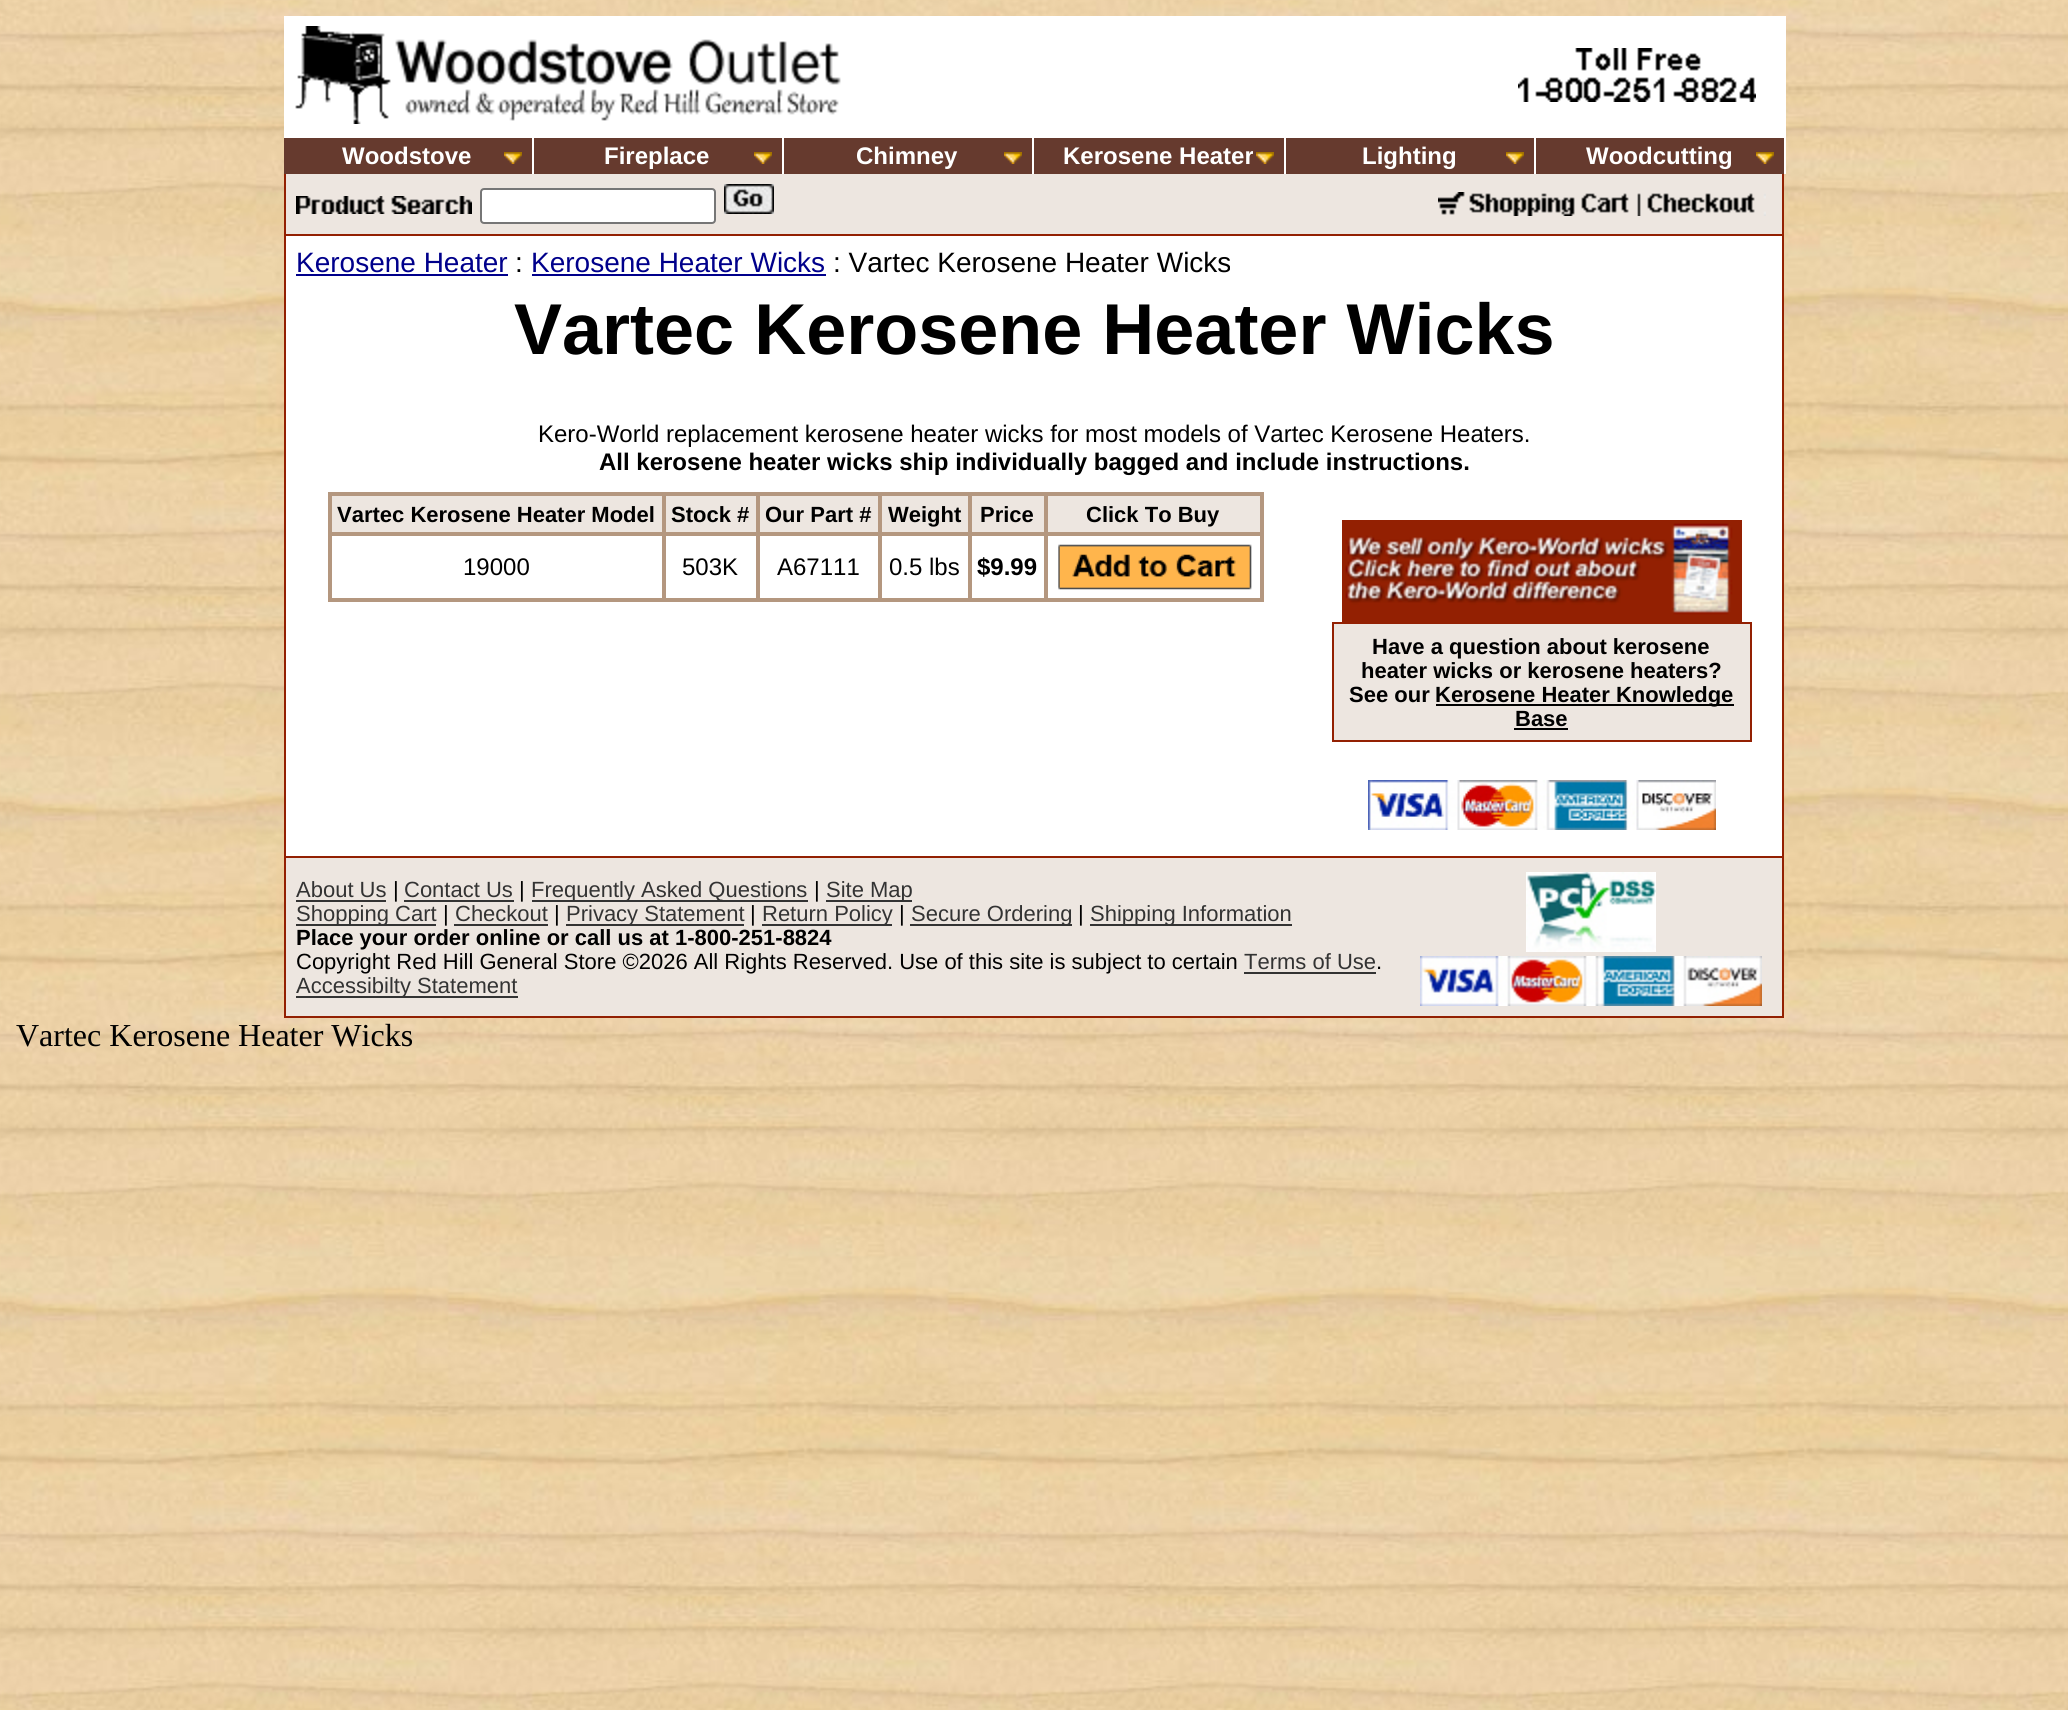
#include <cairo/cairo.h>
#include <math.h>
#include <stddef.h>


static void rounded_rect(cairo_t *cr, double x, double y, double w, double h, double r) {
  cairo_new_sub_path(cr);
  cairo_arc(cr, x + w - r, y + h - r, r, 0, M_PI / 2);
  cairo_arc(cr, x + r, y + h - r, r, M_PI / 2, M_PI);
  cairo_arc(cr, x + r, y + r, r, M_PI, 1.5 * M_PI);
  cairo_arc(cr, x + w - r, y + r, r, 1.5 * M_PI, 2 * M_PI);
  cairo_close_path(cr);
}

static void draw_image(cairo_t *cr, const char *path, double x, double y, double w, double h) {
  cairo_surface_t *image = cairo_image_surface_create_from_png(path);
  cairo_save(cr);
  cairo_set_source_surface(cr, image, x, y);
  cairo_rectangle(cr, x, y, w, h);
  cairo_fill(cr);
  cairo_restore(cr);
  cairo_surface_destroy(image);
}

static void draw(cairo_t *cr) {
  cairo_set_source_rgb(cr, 1, 1, 1);
  cairo_paint(cr);
  draw_image(cr, "images/1.png", 0, 0, 2068, 1710);
  cairo_set_source_rgb(cr, 1, 1, 1);
  cairo_rectangle(cr, 284, 16, 1502, 118);
  cairo_fill(cr);
  draw_image(cr, "images/2.png", 295, 26, 546, 98);
  draw_image(cr, "images/3.png", 1518, 48, 238, 54);
  cairo_set_source_rgb(cr, 102 / 255.0, 58 / 255.0, 46 / 255.0);
  cairo_rectangle(cr, 284, 138, 1500, 36);
  cairo_fill(cr);
  cairo_set_source_rgb(cr, 1, 1, 1);
  cairo_rectangle(cr, 284, 134, 1502, 4);
  cairo_fill(cr);
  cairo_rectangle(cr, 532, 134, 2, 40);
  cairo_fill(cr);
  draw_image(cr, "images/4.png", 504, 152, 18, 12);
  cairo_rectangle(cr, 782, 134, 2, 40);
  cairo_fill(cr);
  draw_image(cr, "images/4.png", 754, 152, 18, 12);
  cairo_rectangle(cr, 1032, 134, 2, 40);
  cairo_fill(cr);
  draw_image(cr, "images/4.png", 1004, 152, 18, 12);
  cairo_rectangle(cr, 1284, 134, 2, 40);
  cairo_fill(cr);
  draw_image(cr, "images/4.png", 1256, 152, 18, 12);
  cairo_rectangle(cr, 1534, 134, 2, 40);
  cairo_fill(cr);
  draw_image(cr, "images/4.png", 1506, 152, 18, 12);
  cairo_rectangle(cr, 1784, 134, 2, 40);
  cairo_fill(cr);
  draw_image(cr, "images/4.png", 1756, 152, 18, 12);
  cairo_rectangle(cr, 286, 236, 1496, 620);
  cairo_fill(cr);
  cairo_set_source_rgb(cr, 147 / 255.0, 32 / 255.0, 2 / 255.0);
  cairo_rectangle(cr, 1782, 174, 2, 844);
  cairo_fill(cr);
  cairo_rectangle(cr, 284, 174, 2, 844);
  cairo_fill(cr);
  cairo_set_source_rgb(cr, 237 / 255.0, 230 / 255.0, 224 / 255.0);
  cairo_rectangle(cr, 286, 174, 1496, 60);
  cairo_fill(cr);
  cairo_set_source_rgb(cr, 147 / 255.0, 32 / 255.0, 2 / 255.0);
  cairo_rectangle(cr, 286, 234, 1496, 2);
  cairo_fill(cr);
  draw_image(cr, "images/5.png", 296, 196, 176, 18);
  cairo_set_source_rgb(cr, 1, 1, 1);
  rounded_rect(cr, 481, 189, 234, 34, 3);
  cairo_fill_preserve(cr);
  cairo_set_source_rgb(cr, 118 / 255.0, 118 / 255.0, 118 / 255.0);
  cairo_stroke(cr);
  draw_image(cr, "images/6.png", 724, 184, 50, 30);
  draw_image(cr, "images/7.png", 1438, 192, 328, 24);
  cairo_set_source_rgb(cr, 0, 0, 139 / 255.0);
  cairo_rectangle(cr, 296, 274, 212, 2);
  cairo_fill(cr);
  cairo_rectangle(cr, 532, 274, 294, 2);
  cairo_fill(cr);
  cairo_rectangle(cr, 329, 493, 934, 108);
  cairo_set_source_rgb(cr, 180 / 255.0, 151 / 255.0, 127 / 255.0);
  cairo_stroke(cr);
  cairo_set_source_rgb(cr, 237 / 255.0, 230 / 255.0, 224 / 255.0);
  cairo_rectangle(cr, 331, 495, 332, 38);
  cairo_fill_preserve(cr);
  cairo_set_source_rgb(cr, 180 / 255.0, 151 / 255.0, 127 / 255.0);
  cairo_stroke(cr);
  cairo_set_source_rgb(cr, 237 / 255.0, 230 / 255.0, 224 / 255.0);
  cairo_rectangle(cr, 665, 495, 92, 38);
  cairo_fill_preserve(cr);
  cairo_set_source_rgb(cr, 180 / 255.0, 151 / 255.0, 127 / 255.0);
  cairo_stroke(cr);
  cairo_set_source_rgb(cr, 237 / 255.0, 230 / 255.0, 224 / 255.0);
  cairo_rectangle(cr, 759, 495, 120, 38);
  cairo_fill_preserve(cr);
  cairo_set_source_rgb(cr, 180 / 255.0, 151 / 255.0, 127 / 255.0);
  cairo_stroke(cr);
  cairo_set_source_rgb(cr, 237 / 255.0, 230 / 255.0, 224 / 255.0);
  cairo_rectangle(cr, 881, 495, 88, 38);
  cairo_fill_preserve(cr);
  cairo_set_source_rgb(cr, 180 / 255.0, 151 / 255.0, 127 / 255.0);
  cairo_stroke(cr);
  cairo_set_source_rgb(cr, 237 / 255.0, 230 / 255.0, 224 / 255.0);
  cairo_rectangle(cr, 971, 495, 74, 38);
  cairo_fill_preserve(cr);
  cairo_set_source_rgb(cr, 180 / 255.0, 151 / 255.0, 127 / 255.0);
  cairo_stroke(cr);
  cairo_set_source_rgb(cr, 237 / 255.0, 230 / 255.0, 224 / 255.0);
  cairo_rectangle(cr, 1047, 495, 214, 38);
  cairo_fill_preserve(cr);
  cairo_set_source_rgb(cr, 180 / 255.0, 151 / 255.0, 127 / 255.0);
  cairo_stroke(cr);
  cairo_rectangle(cr, 331, 535, 332, 64);
  cairo_stroke(cr);
  cairo_rectangle(cr, 665, 535, 92, 64);
  cairo_stroke(cr);
  cairo_rectangle(cr, 759, 535, 120, 64);
  cairo_stroke(cr);
  cairo_rectangle(cr, 881, 535, 88, 64);
  cairo_stroke(cr);
  cairo_rectangle(cr, 971, 535, 74, 64);
  cairo_stroke(cr);
  cairo_rectangle(cr, 1047, 535, 214, 64);
  cairo_stroke(cr);
  draw_image(cr, "images/8.png", 1058, 544, 194, 46);
  draw_image(cr, "images/9.png", 1342, 520, 400, 102);
  cairo_set_source_rgb(cr, 237 / 255.0, 230 / 255.0, 224 / 255.0);
  cairo_rectangle(cr, 1333, 623, 418, 118);
  cairo_fill_preserve(cr);
  cairo_set_source_rgb(cr, 147 / 255.0, 32 / 255.0, 2 / 255.0);
  cairo_stroke(cr);
  cairo_set_source_rgb(cr, 0, 0, 0);
  cairo_rectangle(cr, 1436, 704, 298, 2);
  cairo_fill(cr);
  cairo_rectangle(cr, 1514, 728, 54, 2);
  cairo_fill(cr);
  draw_image(cr, "images/10.png", 1368, 780, 348, 50);
  cairo_set_source_rgb(cr, 237 / 255.0, 230 / 255.0, 224 / 255.0);
  cairo_rectangle(cr, 286, 858, 1496, 158);
  cairo_fill(cr);
  cairo_set_source_rgb(cr, 147 / 255.0, 32 / 255.0, 2 / 255.0);
  cairo_rectangle(cr, 286, 856, 1496, 2);
  cairo_fill(cr);
  cairo_rectangle(cr, 286, 1016, 1496, 2);
  cairo_fill(cr);
  cairo_set_source_rgb(cr, 51 / 255.0, 51 / 255.0, 51 / 255.0);
  cairo_rectangle(cr, 296, 900, 90, 2);
  cairo_fill(cr);
  cairo_rectangle(cr, 404, 900, 110, 2);
  cairo_fill(cr);
  cairo_rectangle(cr, 532, 900, 276, 2);
  cairo_fill(cr);
  cairo_rectangle(cr, 826, 900, 86, 2);
  cairo_fill(cr);
  cairo_rectangle(cr, 296, 924, 140, 2);
  cairo_fill(cr);
  cairo_rectangle(cr, 454, 924, 94, 2);
  cairo_fill(cr);
  cairo_rectangle(cr, 566, 924, 178, 2);
  cairo_fill(cr);
  cairo_rectangle(cr, 762, 924, 130, 2);
  cairo_fill(cr);
  cairo_rectangle(cr, 910, 924, 162, 2);
  cairo_fill(cr);
  cairo_rectangle(cr, 1090, 924, 202, 2);
  cairo_fill(cr);
  cairo_rectangle(cr, 1244, 972, 132, 2);
  cairo_fill(cr);
  cairo_rectangle(cr, 296, 996, 222, 2);
  cairo_fill(cr);
  draw_image(cr, "images/11.png", 1526, 872, 130, 80);
  draw_image(cr, "images/12.png", 1420, 956, 342, 50);
  cairo_select_font_face(cr, "Liberation Sans", CAIRO_FONT_SLANT_NORMAL, CAIRO_FONT_WEIGHT_BOLD);
  cairo_set_font_size(cr, 24);
  cairo_set_source_rgb(cr, 1, 1, 1);
  cairo_move_to(cr, 342, 164);
  cairo_show_text(cr, "Woodstove");
  cairo_move_to(cr, 604, 164);
  cairo_show_text(cr, "Fireplace");
  cairo_move_to(cr, 856, 164);
  cairo_show_text(cr, "Chimney");
  cairo_move_to(cr, 1063, 164);
  cairo_show_text(cr, "Kerosene Heater");
  cairo_move_to(cr, 1362, 164);
  cairo_show_text(cr, "Lighting");
  cairo_move_to(cr, 1586, 164);
  cairo_show_text(cr, "Woodcutting");
  cairo_select_font_face(cr, "Liberation Sans", CAIRO_FONT_SLANT_NORMAL, CAIRO_FONT_WEIGHT_NORMAL);
  cairo_set_font_size(cr, 28);
  cairo_set_source_rgb(cr, 0, 0, 139 / 255.0);
  cairo_move_to(cr, 296, 272);
  cairo_show_text(cr, "Kerosene Heater");
  cairo_set_source_rgb(cr, 0, 0, 0);
  cairo_move_to(cr, 515, 272);
  cairo_show_text(cr, ":");
  cairo_set_source_rgb(cr, 0, 0, 139 / 255.0);
  cairo_move_to(cr, 531, 272);
  cairo_show_text(cr, "Kerosene Heater Wicks");
  cairo_set_source_rgb(cr, 0, 0, 0);
  cairo_move_to(cr, 833, 272);
  cairo_show_text(cr, ": Vartec Kerosene Heater Wicks");
  cairo_select_font_face(cr, "Liberation Sans", CAIRO_FONT_SLANT_NORMAL, CAIRO_FONT_WEIGHT_BOLD);
  cairo_set_font_size(cr, 72);
  cairo_move_to(cr, 514, 354);
  cairo_show_text(cr, "Vartec Kerosene Heater Wicks");
  cairo_select_font_face(cr, "Liberation Sans", CAIRO_FONT_SLANT_NORMAL, CAIRO_FONT_WEIGHT_NORMAL);
  cairo_set_font_size(cr, 24);
  cairo_move_to(cr, 538, 442);
  cairo_show_text(cr, "Kero-World replacement kerosene heater wicks for most models of Vartec Kerosene Heaters.");
  cairo_select_font_face(cr, "Liberation Sans", CAIRO_FONT_SLANT_NORMAL, CAIRO_FONT_WEIGHT_BOLD);
  cairo_move_to(cr, 599, 470);
  cairo_show_text(cr, "All kerosene heater wicks ship individually bagged and include instructions.");
  cairo_set_font_size(cr, 22);
  cairo_move_to(cr, 337, 522);
  cairo_show_text(cr, "Vartec Kerosene Heater Model");
  cairo_move_to(cr, 671, 522);
  cairo_show_text(cr, "Stock #");
  cairo_move_to(cr, 765, 522);
  cairo_show_text(cr, "Our Part #");
  cairo_move_to(cr, 888, 522);
  cairo_show_text(cr, "Weight");
  cairo_move_to(cr, 980, 522);
  cairo_show_text(cr, "Price");
  cairo_move_to(cr, 1086, 522);
  cairo_show_text(cr, "Click To Buy");
  cairo_select_font_face(cr, "Liberation Sans", CAIRO_FONT_SLANT_NORMAL, CAIRO_FONT_WEIGHT_NORMAL);
  cairo_set_font_size(cr, 24);
  cairo_move_to(cr, 463, 575);
  cairo_show_text(cr, "19000");
  cairo_move_to(cr, 682, 575);
  cairo_show_text(cr, "503K");
  cairo_move_to(cr, 777, 575);
  cairo_show_text(cr, "A67111");
  cairo_move_to(cr, 889, 575);
  cairo_show_text(cr, "0.5 lbs");
  cairo_select_font_face(cr, "Liberation Sans", CAIRO_FONT_SLANT_NORMAL, CAIRO_FONT_WEIGHT_BOLD);
  cairo_move_to(cr, 977, 575);
  cairo_show_text(cr, "$9.99");
  cairo_set_font_size(cr, 22);
  cairo_move_to(cr, 1372, 654);
  cairo_show_text(cr, "Have a question about kerosene");
  cairo_move_to(cr, 1361, 678);
  cairo_show_text(cr, "heater wicks or kerosene heaters?");
  cairo_move_to(cr, 1349, 702);
  cairo_show_text(cr, "See our");
  cairo_move_to(cr, 1435, 702);
  cairo_show_text(cr, "Kerosene Heater Knowledge");
  cairo_move_to(cr, 1515, 726);
  cairo_show_text(cr, "Base");
  cairo_select_font_face(cr, "Liberation Sans", CAIRO_FONT_SLANT_NORMAL, CAIRO_FONT_WEIGHT_NORMAL);
  cairo_set_source_rgb(cr, 51 / 255.0, 51 / 255.0, 51 / 255.0);
  cairo_move_to(cr, 296, 897);
  cairo_show_text(cr, "About Us");
  cairo_set_source_rgb(cr, 0, 0, 0);
  cairo_move_to(cr, 393, 897);
  cairo_show_text(cr, "|");
  cairo_set_source_rgb(cr, 51 / 255.0, 51 / 255.0, 51 / 255.0);
  cairo_move_to(cr, 404, 897);
  cairo_show_text(cr, "Contact Us");
  cairo_set_source_rgb(cr, 0, 0, 0);
  cairo_move_to(cr, 519, 897);
  cairo_show_text(cr, "|");
  cairo_set_source_rgb(cr, 51 / 255.0, 51 / 255.0, 51 / 255.0);
  cairo_move_to(cr, 531, 897);
  cairo_show_text(cr, "Frequently Asked Questions");
  cairo_set_source_rgb(cr, 0, 0, 0);
  cairo_move_to(cr, 814, 897);
  cairo_show_text(cr, "|");
  cairo_set_source_rgb(cr, 51 / 255.0, 51 / 255.0, 51 / 255.0);
  cairo_move_to(cr, 826, 897);
  cairo_show_text(cr, "Site Map");
  cairo_move_to(cr, 296, 921);
  cairo_show_text(cr, "Shopping Cart");
  cairo_set_source_rgb(cr, 0, 0, 0);
  cairo_move_to(cr, 443, 921);
  cairo_show_text(cr, "|");
  cairo_set_source_rgb(cr, 51 / 255.0, 51 / 255.0, 51 / 255.0);
  cairo_move_to(cr, 455, 921);
  cairo_show_text(cr, "Checkout");
  cairo_set_source_rgb(cr, 0, 0, 0);
  cairo_move_to(cr, 554, 921);
  cairo_show_text(cr, "|");
  cairo_set_source_rgb(cr, 51 / 255.0, 51 / 255.0, 51 / 255.0);
  cairo_move_to(cr, 566, 921);
  cairo_show_text(cr, "Privacy Statement");
  cairo_set_source_rgb(cr, 0, 0, 0);
  cairo_move_to(cr, 750, 921);
  cairo_show_text(cr, "|");
  cairo_set_source_rgb(cr, 51 / 255.0, 51 / 255.0, 51 / 255.0);
  cairo_move_to(cr, 762, 921);
  cairo_show_text(cr, "Return Policy");
  cairo_set_source_rgb(cr, 0, 0, 0);
  cairo_move_to(cr, 899, 921);
  cairo_show_text(cr, "|");
  cairo_set_source_rgb(cr, 51 / 255.0, 51 / 255.0, 51 / 255.0);
  cairo_move_to(cr, 911, 921);
  cairo_show_text(cr, "Secure Ordering");
  cairo_set_source_rgb(cr, 0, 0, 0);
  cairo_move_to(cr, 1078, 921);
  cairo_show_text(cr, "|");
  cairo_set_source_rgb(cr, 51 / 255.0, 51 / 255.0, 51 / 255.0);
  cairo_move_to(cr, 1090, 921);
  cairo_show_text(cr, "Shipping Information");
  cairo_select_font_face(cr, "Liberation Sans", CAIRO_FONT_SLANT_NORMAL, CAIRO_FONT_WEIGHT_BOLD);
  cairo_set_source_rgb(cr, 0, 0, 0);
  cairo_move_to(cr, 296, 945);
  cairo_show_text(cr, "Place your order online or call us at 1-800-251-8824");
  cairo_select_font_face(cr, "Liberation Sans", CAIRO_FONT_SLANT_NORMAL, CAIRO_FONT_WEIGHT_NORMAL);
  cairo_move_to(cr, 296, 969);
  cairo_show_text(cr, "Copyright Red Hill General Store ©2026 All Rights Reserved. Use of this site is subject to certain");
  cairo_set_source_rgb(cr, 51 / 255.0, 51 / 255.0, 51 / 255.0);
  cairo_move_to(cr, 1244, 969);
  cairo_show_text(cr, "Terms of Use");
  cairo_set_source_rgb(cr, 0, 0, 0);
  cairo_move_to(cr, 1376, 969);
  cairo_show_text(cr, ".");
  cairo_set_source_rgb(cr, 51 / 255.0, 51 / 255.0, 51 / 255.0);
  cairo_move_to(cr, 296, 993);
  cairo_show_text(cr, "Accessibilty Statement");
  cairo_select_font_face(cr, "Liberation Serif", CAIRO_FONT_SLANT_NORMAL, CAIRO_FONT_WEIGHT_NORMAL);
  cairo_set_font_size(cr, 32);
  cairo_set_source_rgb(cr, 0, 0, 0);
  cairo_move_to(cr, 16, 1046);
  cairo_show_text(cr, "Vartec Kerosene Heater Wicks");
}

int main(void) {
  cairo_surface_t *surface = cairo_image_surface_create(CAIRO_FORMAT_RGB24, 2068, 1710);
  cairo_t *cr = cairo_create(surface);
  cairo_font_options_t *options = cairo_font_options_create();
  cairo_font_options_set_hint_metrics(options, CAIRO_HINT_METRICS_OFF);
  cairo_font_options_set_hint_style(options, CAIRO_HINT_STYLE_NONE);
  cairo_set_font_options(cr, options);
  cairo_set_miter_limit(cr, 4);
  draw(cr);
  cairo_surface_write_to_png(surface, "out.png");
  cairo_font_options_destroy(options);
  cairo_destroy(cr);
  cairo_surface_destroy(surface);
  return 0;
}
